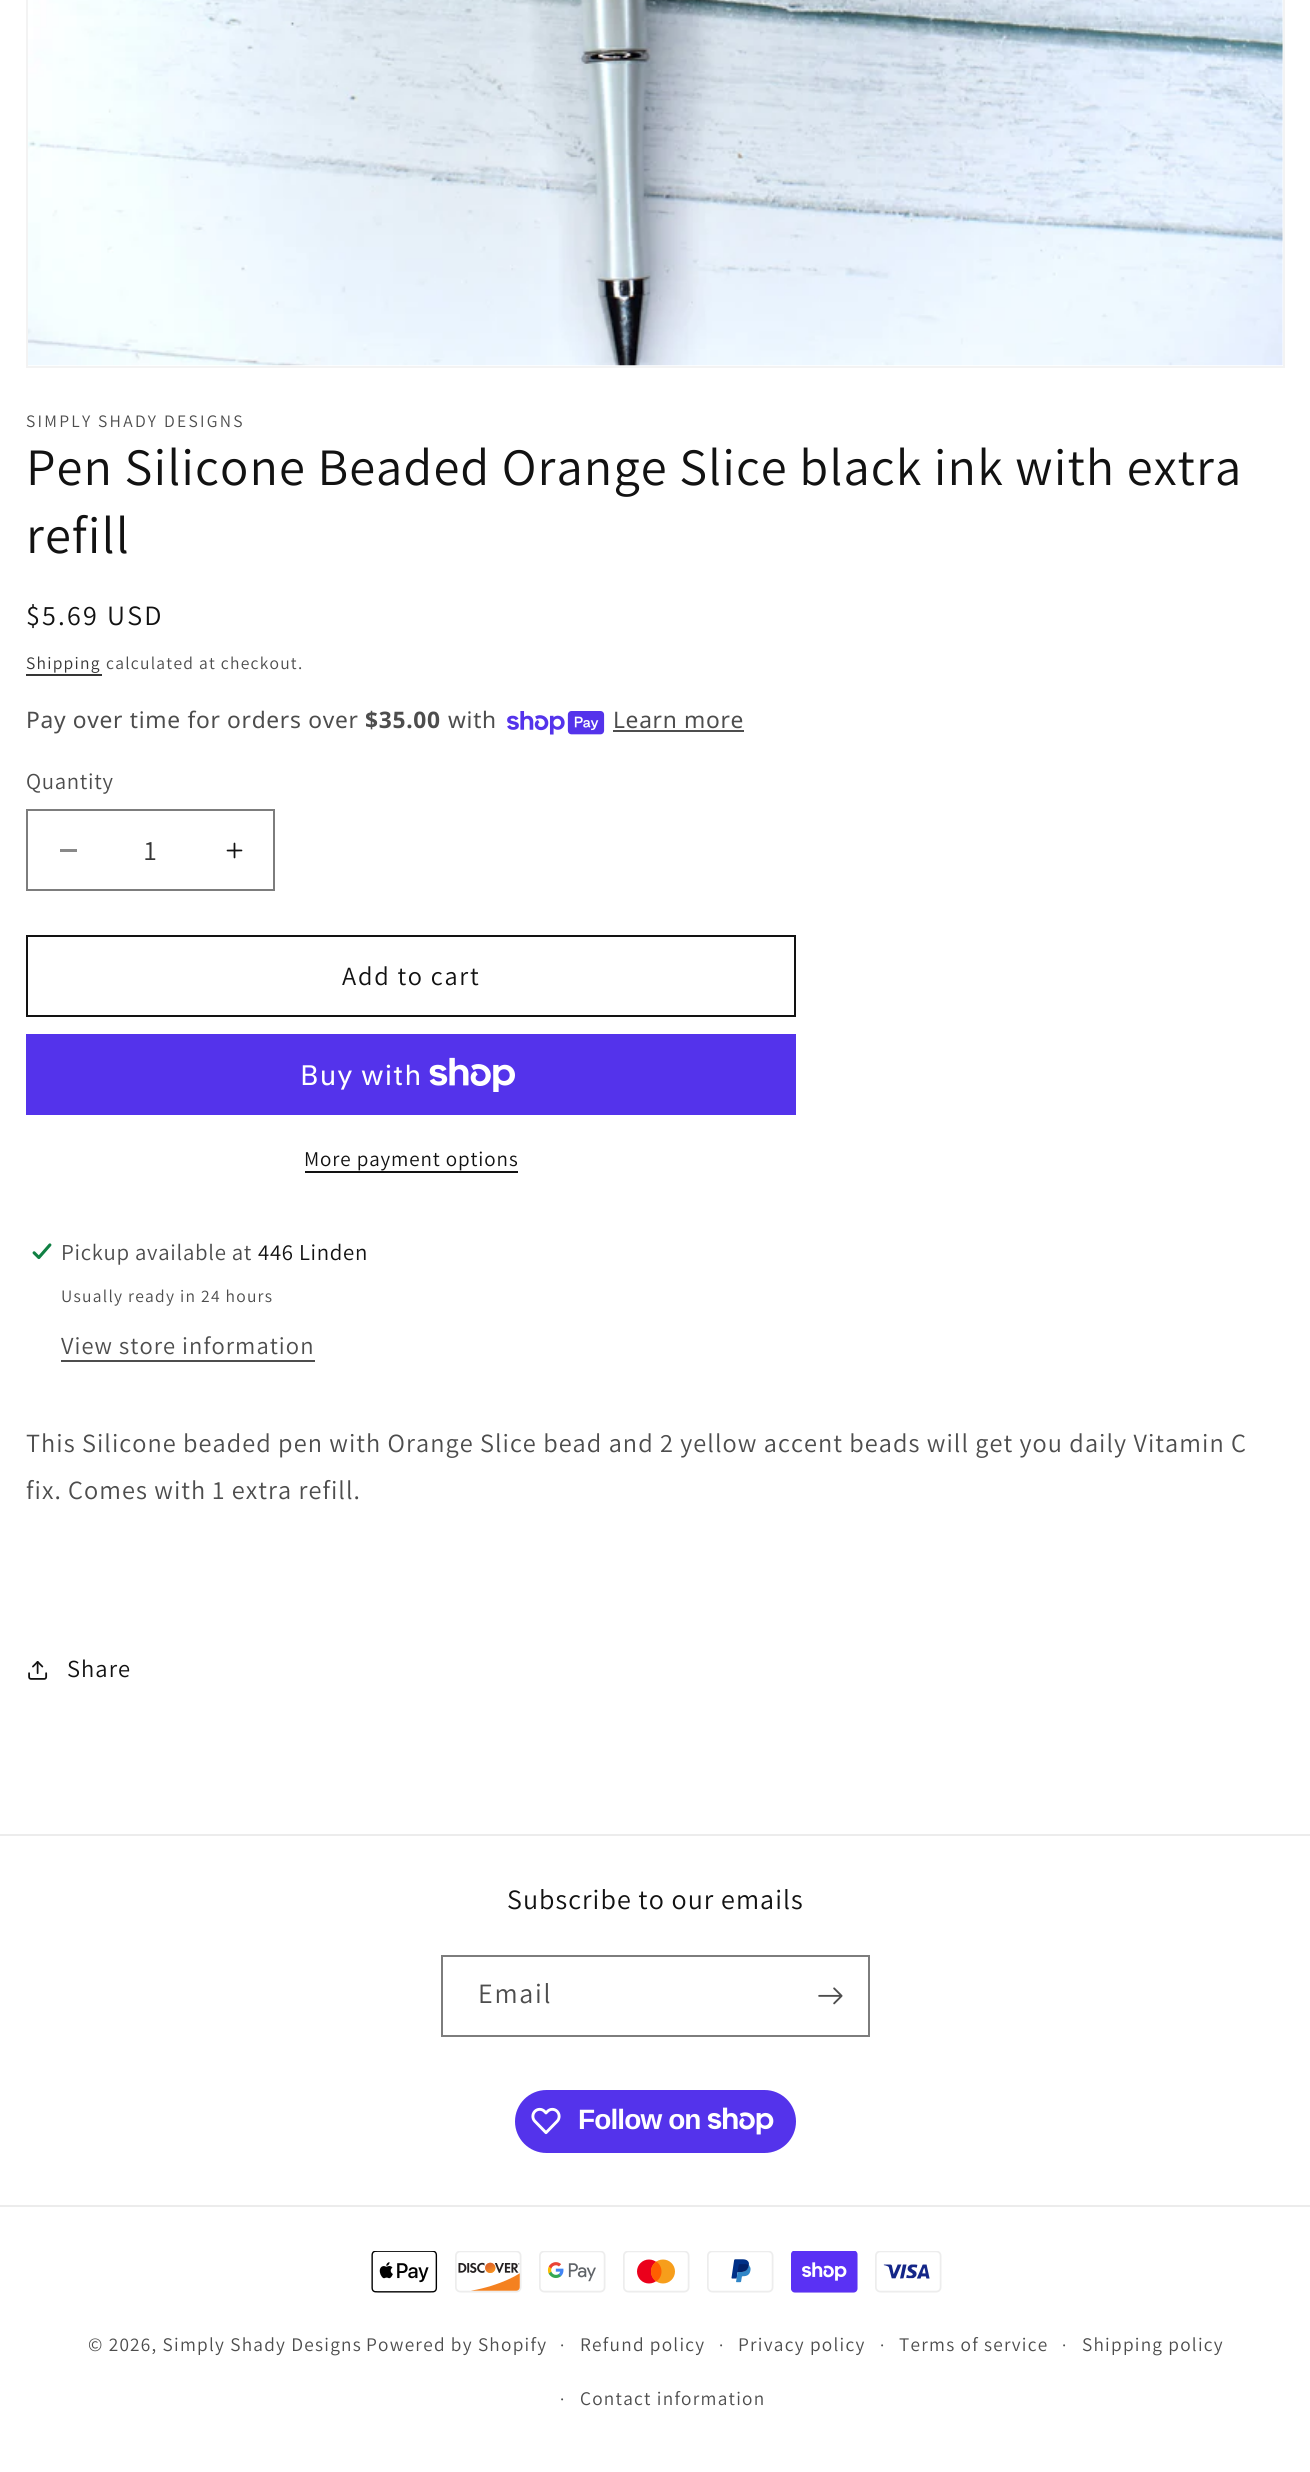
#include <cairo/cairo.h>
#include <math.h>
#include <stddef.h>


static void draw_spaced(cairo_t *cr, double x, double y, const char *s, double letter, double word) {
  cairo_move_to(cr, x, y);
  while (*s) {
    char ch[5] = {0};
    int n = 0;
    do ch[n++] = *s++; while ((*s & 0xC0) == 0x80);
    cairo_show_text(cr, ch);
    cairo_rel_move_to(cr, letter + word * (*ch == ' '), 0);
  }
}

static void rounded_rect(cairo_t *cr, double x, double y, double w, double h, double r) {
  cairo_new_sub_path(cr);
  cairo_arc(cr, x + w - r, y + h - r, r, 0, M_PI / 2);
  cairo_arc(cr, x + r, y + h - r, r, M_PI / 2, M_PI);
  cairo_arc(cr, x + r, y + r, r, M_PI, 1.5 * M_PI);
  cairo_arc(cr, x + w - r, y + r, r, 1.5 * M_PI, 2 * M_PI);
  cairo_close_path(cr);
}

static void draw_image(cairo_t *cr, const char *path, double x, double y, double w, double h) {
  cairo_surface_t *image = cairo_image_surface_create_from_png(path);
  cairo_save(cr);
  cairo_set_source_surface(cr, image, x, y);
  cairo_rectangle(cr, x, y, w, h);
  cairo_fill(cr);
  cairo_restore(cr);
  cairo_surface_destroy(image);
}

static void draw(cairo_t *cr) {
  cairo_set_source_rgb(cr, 1, 1, 1);
  cairo_paint(cr);
  cairo_rectangle(cr, 27, -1, 1257, 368);
  cairo_set_source_rgb(cr, 243 / 255.0, 243 / 255.0, 243 / 255.0);
  cairo_stroke(cr);
  draw_image(cr, "images/1.png", 28, 0, 1255, 366);
  cairo_set_source_rgb(cr, 54 / 255.0, 54 / 255.0, 54 / 255.0);
  cairo_rectangle(cr, 26, 674, 76, 2);
  cairo_fill(cr);
  draw_image(cr, "images/2.png", 507, 711, 98, 24);
  cairo_set_source_rgb(cr, 77 / 255.0, 77 / 255.0, 77 / 255.0);
  cairo_rectangle(cr, 613, 730, 131, 2);
  cairo_fill(cr);
  cairo_set_source_rgb(cr, 137 / 255.0, 137 / 255.0, 137 / 255.0);
  cairo_rectangle(cr, 60, 849, 17, 3);
  cairo_fill(cr);
  draw_image(cr, "images/3.png", 226, 842, 17, 17);
  cairo_rectangle(cr, 27, 810, 247, 80);
  cairo_set_source_rgb(cr, 125 / 255.0, 125 / 255.0, 125 / 255.0);
  cairo_stroke(cr);
  cairo_rectangle(cr, 27, 936, 768, 80);
  cairo_set_source_rgb(cr, 18 / 255.0, 18 / 255.0, 18 / 255.0);
  cairo_stroke(cr);
  cairo_set_source_rgb(cr, 84 / 255.0, 51 / 255.0, 235 / 255.0);
  cairo_rectangle(cr, 26, 1034, 770, 81);
  cairo_fill(cr);
  draw_image(cr, "images/4.png", 429, 1057, 86, 35);
  cairo_set_source_rgb(cr, 18 / 255.0, 18 / 255.0, 18 / 255.0);
  cairo_rectangle(cr, 305, 1171, 213, 2);
  cairo_fill(cr);
  draw_image(cr, "images/5.png", 32, 1243, 20, 17);
  cairo_set_source_rgb(cr, 77 / 255.0, 77 / 255.0, 77 / 255.0);
  cairo_rectangle(cr, 61, 1360, 254, 2);
  cairo_fill(cr);
  draw_image(cr, "images/6.png", 28, 1661, 20, 19);
  cairo_set_source_rgb(cr, 236 / 255.0, 236 / 255.0, 236 / 255.0);
  cairo_rectangle(cr, 0, 1834, 1310, 2);
  cairo_fill(cr);
  cairo_rectangle(cr, 442, 1956, 427, 80);
  cairo_set_source_rgb(cr, 125 / 255.0, 125 / 255.0, 125 / 255.0);
  cairo_stroke(cr);
  draw_image(cr, "images/7.png", 818, 1987, 25, 18);
  cairo_set_source_rgb(cr, 84 / 255.0, 51 / 255.0, 235 / 255.0);
  rounded_rect(cr, 515, 2090, 281, 63, 31.5);
  cairo_fill(cr);
  draw_image(cr, "images/8.png", 531, 2107, 30, 28);
  draw_image(cr, "images/9.png", 707, 2107, 67, 28);
  cairo_set_source_rgb(cr, 236 / 255.0, 236 / 255.0, 236 / 255.0);
  cairo_rectangle(cr, 0, 2205, 1310, 2);
  cairo_fill(cr);
  draw_image(cr, "images/10.png", 371, 2251, 67, 42);
  draw_image(cr, "images/11.png", 455, 2251, 67, 42);
  draw_image(cr, "images/12.png", 539, 2251, 67, 42);
  draw_image(cr, "images/13.png", 623, 2251, 67, 42);
  draw_image(cr, "images/14.png", 707, 2251, 67, 42);
  draw_image(cr, "images/15.png", 791, 2251, 67, 42);
  draw_image(cr, "images/16.png", 875, 2251, 67, 42);
  cairo_select_font_face(cr, "Assistant", CAIRO_FONT_SLANT_NORMAL, CAIRO_FONT_WEIGHT_NORMAL);
  cairo_set_font_size(cr, 17.5);
  cairo_set_source_rgb(cr, 77 / 255.0, 77 / 255.0, 77 / 255.0);
  draw_spaced(cr, 26, 427, "SIMPLY SHADY DESIGNS", 2.25, 0);
  cairo_set_font_size(cr, 52.5);
  cairo_set_source_rgb(cr, 18 / 255.0, 18 / 255.0, 18 / 255.0);
  draw_spaced(cr, 26, 485, "Pen Silicone Beaded Orange Slice black ink with extra", 1.05, 0);
  draw_spaced(cr, 26, 553, "refill", 1.05, 0);
  cairo_set_font_size(cr, 28);
  draw_spaced(cr, 26, 625, "$5.69 USD", 2.25, 0);
  cairo_set_font_size(cr, 17.5);
  cairo_set_source_rgb(cr, 54 / 255.0, 54 / 255.0, 54 / 255.0);
  draw_spaced(cr, 26, 669, "Shipping", 1.25, 0);
  cairo_set_source_rgb(cr, 77 / 255.0, 77 / 255.0, 77 / 255.0);
  draw_spaced(cr, 106, 669, "calculated at checkout.", 1.25, 0);
  cairo_select_font_face(cr, "Noto Sans", CAIRO_FONT_SLANT_NORMAL, CAIRO_FONT_WEIGHT_NORMAL);
  cairo_set_font_size(cr, 22.75);
  draw_spaced(cr, 26, 728, "Pay over time for orders over", 0.7, 0);
  cairo_select_font_face(cr, "Noto Sans", CAIRO_FONT_SLANT_NORMAL, CAIRO_FONT_WEIGHT_BOLD);
  draw_spaced(cr, 365, 728, "$35.00", 0.7, 0);
  cairo_select_font_face(cr, "Noto Sans", CAIRO_FONT_SLANT_NORMAL, CAIRO_FONT_WEIGHT_NORMAL);
  draw_spaced(cr, 448, 728, "with", 0.7, 0);
  draw_spaced(cr, 613, 728, "Learn more", 0.7, 0);
  cairo_select_font_face(cr, "Assistant", CAIRO_FONT_SLANT_NORMAL, CAIRO_FONT_WEIGHT_NORMAL);
  draw_spaced(cr, 26, 789, "Quantity", 0.7, 0);
  cairo_set_font_size(cr, 28);
  cairo_set_source_rgb(cr, 54 / 255.0, 54 / 255.0, 54 / 255.0);
  cairo_move_to(cr, 144, 860);
  cairo_show_text(cr, "1");
  cairo_set_font_size(cr, 26.25);
  cairo_set_source_rgb(cr, 18 / 255.0, 18 / 255.0, 18 / 255.0);
  draw_spaced(cr, 342, 985, "Add to cart", 1.75, 0);
  cairo_select_font_face(cr, "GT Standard", CAIRO_FONT_SLANT_NORMAL, CAIRO_FONT_WEIGHT_NORMAL);
  cairo_set_font_size(cr, 28);
  cairo_set_source_rgb(cr, 1, 1, 1);
  draw_spaced(cr, 300, 1085, "Buy with", 1.05, 0);
  cairo_select_font_face(cr, "Assistant", CAIRO_FONT_SLANT_NORMAL, CAIRO_FONT_WEIGHT_NORMAL);
  cairo_set_font_size(cr, 21);
  cairo_set_source_rgb(cr, 18 / 255.0, 18 / 255.0, 18 / 255.0);
  draw_spaced(cr, 304, 1166, "More payment options", 0.9, 0);
  cairo_set_font_size(cr, 22.75);
  cairo_set_source_rgb(cr, 77 / 255.0, 77 / 255.0, 77 / 255.0);
  draw_spaced(cr, 61, 1260, "Pickup available at", 0.7, 0);
  cairo_set_source_rgb(cr, 18 / 255.0, 18 / 255.0, 18 / 255.0);
  draw_spaced(cr, 258, 1260, "446 Linden", 0.7, 0);
  cairo_set_font_size(cr, 17.5);
  cairo_set_source_rgb(cr, 77 / 255.0, 77 / 255.0, 77 / 255.0);
  draw_spaced(cr, 61, 1302, "Usually ready in 24 hours", 1.25, 0);
  cairo_set_font_size(cr, 24.5);
  draw_spaced(cr, 61, 1354, "View store information", 1.05, 0);
  cairo_set_font_size(cr, 26.25);
  draw_spaced(cr, 26, 1452, "This Silicone beaded pen with Orange Slice bead and 2 yellow accent beads will get you daily Vitamin C", 1.05, 0);
  draw_spaced(cr, 26, 1499, "fix. Comes with 1 extra refill.", 1.05, 0);
  cairo_set_font_size(cr, 24.5);
  cairo_set_source_rgb(cr, 18 / 255.0, 18 / 255.0, 18 / 255.0);
  draw_spaced(cr, 67, 1677, "Share", 1.05, 0);
  cairo_set_font_size(cr, 28);
  draw_spaced(cr, 507, 1909, "Subscribe to our emails", 1.05, 0);
  cairo_set_source_rgb(cr, 77 / 255.0, 77 / 255.0, 77 / 255.0);
  draw_spaced(cr, 478, 2003, "Email", 1.75, 0);
  cairo_select_font_face(cr, "Liberation Sans", CAIRO_FONT_SLANT_NORMAL, CAIRO_FONT_WEIGHT_BOLD);
  cairo_set_source_rgb(cr, 1, 1, 1);
  draw_spaced(cr, 578, 2129, "Follow on", -0.9, 0);
  cairo_select_font_face(cr, "Assistant", CAIRO_FONT_SLANT_NORMAL, CAIRO_FONT_WEIGHT_NORMAL);
  cairo_set_font_size(cr, 19.25);
  cairo_set_source_rgb(cr, 77 / 255.0, 77 / 255.0, 77 / 255.0);
  draw_spaced(cr, 88, 2351, "© 2026, Simply Shady Designs", 1.25, 0);
  draw_spaced(cr, 366, 2351, "Powered by Shopify", 1.25, 0);
  cairo_set_font_size(cr, 17.5);
  draw_spaced(cr, 560, 2351, "·", 1.25, 0);
  cairo_set_font_size(cr, 19.25);
  draw_spaced(cr, 580, 2351, "Refund policy", 1.25, 0);
  cairo_set_font_size(cr, 17.5);
  draw_spaced(cr, 719, 2351, "·", 1.25, 0);
  cairo_set_font_size(cr, 19.25);
  draw_spaced(cr, 738, 2351, "Privacy policy", 1.25, 0);
  cairo_set_font_size(cr, 17.5);
  draw_spaced(cr, 880, 2351, "·", 1.25, 0);
  cairo_set_font_size(cr, 19.25);
  draw_spaced(cr, 899, 2351, "Terms of service", 1.25, 0);
  cairo_set_font_size(cr, 17.5);
  draw_spaced(cr, 1062, 2351, "·", 1.25, 0);
  cairo_set_font_size(cr, 19.25);
  draw_spaced(cr, 1082, 2351, "Shipping policy", 1.25, 0);
  cairo_set_font_size(cr, 17.5);
  draw_spaced(cr, 560, 2405, "·", 1.25, 0);
  cairo_set_font_size(cr, 19.25);
  draw_spaced(cr, 580, 2405, "Contact information", 1.25, 0);
}

int main(void) {
  cairo_surface_t *surface = cairo_image_surface_create(CAIRO_FORMAT_RGB24, 1310, 2472);
  cairo_t *cr = cairo_create(surface);
  cairo_font_options_t *options = cairo_font_options_create();
  cairo_font_options_set_hint_metrics(options, CAIRO_HINT_METRICS_OFF);
  cairo_font_options_set_hint_style(options, CAIRO_HINT_STYLE_NONE);
  cairo_set_font_options(cr, options);
  cairo_set_miter_limit(cr, 4);
  draw(cr);
  cairo_surface_write_to_png(surface, "out.png");
  cairo_font_options_destroy(options);
  cairo_destroy(cr);
  cairo_surface_destroy(surface);
  return 0;
}
